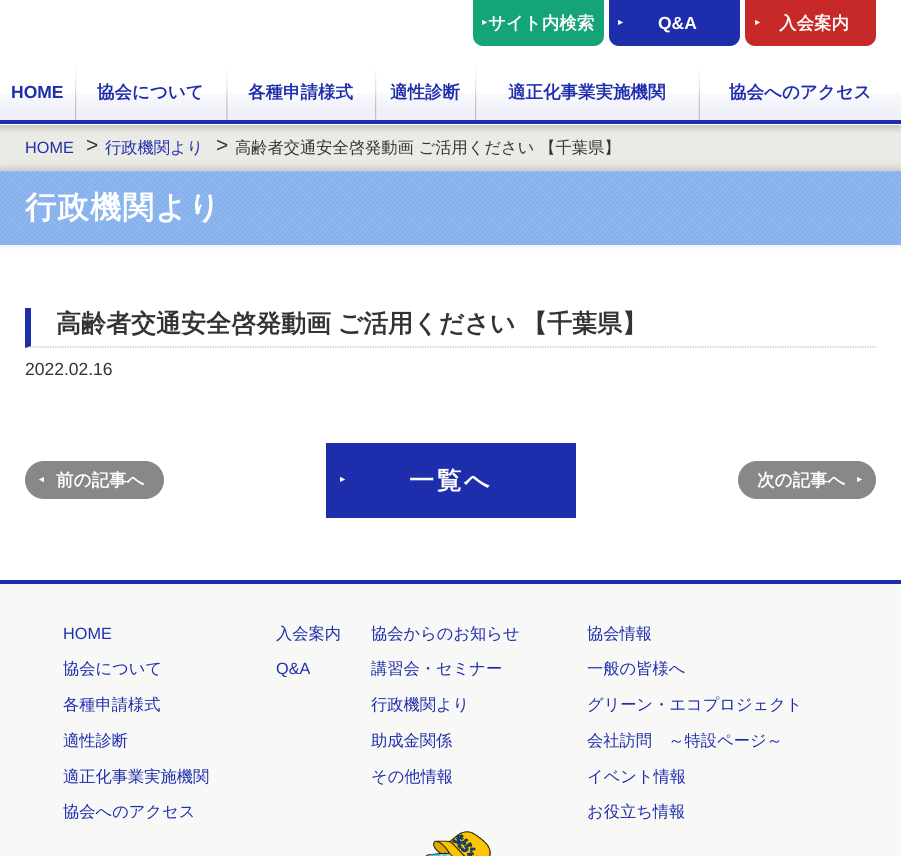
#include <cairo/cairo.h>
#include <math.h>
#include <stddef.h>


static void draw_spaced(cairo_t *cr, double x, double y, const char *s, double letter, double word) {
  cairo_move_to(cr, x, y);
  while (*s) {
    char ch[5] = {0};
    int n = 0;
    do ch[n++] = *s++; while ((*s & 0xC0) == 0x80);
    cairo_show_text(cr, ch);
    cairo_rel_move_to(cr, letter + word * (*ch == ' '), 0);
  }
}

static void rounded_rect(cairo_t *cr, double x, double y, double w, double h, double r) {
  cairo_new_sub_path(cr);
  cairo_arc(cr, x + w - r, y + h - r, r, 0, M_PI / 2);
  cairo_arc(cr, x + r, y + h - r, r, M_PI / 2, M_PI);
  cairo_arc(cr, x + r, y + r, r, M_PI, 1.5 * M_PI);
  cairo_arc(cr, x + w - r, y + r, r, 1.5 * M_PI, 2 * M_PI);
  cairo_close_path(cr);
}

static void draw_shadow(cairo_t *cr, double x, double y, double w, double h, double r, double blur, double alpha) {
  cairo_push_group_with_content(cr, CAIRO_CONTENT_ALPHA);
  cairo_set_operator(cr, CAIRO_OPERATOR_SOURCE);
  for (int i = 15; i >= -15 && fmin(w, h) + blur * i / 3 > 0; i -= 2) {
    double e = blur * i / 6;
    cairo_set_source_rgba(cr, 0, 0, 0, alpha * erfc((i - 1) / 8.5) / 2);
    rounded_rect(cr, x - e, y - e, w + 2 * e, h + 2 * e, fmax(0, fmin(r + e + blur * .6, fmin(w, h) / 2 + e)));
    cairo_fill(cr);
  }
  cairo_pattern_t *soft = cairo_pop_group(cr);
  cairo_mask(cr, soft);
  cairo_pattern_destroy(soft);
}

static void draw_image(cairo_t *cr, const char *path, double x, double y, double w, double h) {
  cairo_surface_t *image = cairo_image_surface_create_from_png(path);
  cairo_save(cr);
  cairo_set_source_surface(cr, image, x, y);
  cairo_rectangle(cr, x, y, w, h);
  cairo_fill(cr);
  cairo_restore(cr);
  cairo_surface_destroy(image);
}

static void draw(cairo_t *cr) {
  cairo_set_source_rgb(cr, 1, 1, 1);
  cairo_paint(cr);
  cairo_set_source_rgb(cr, 235 / 255.0, 235 / 255.0, 230 / 255.0);
  cairo_rectangle(cr, 0, 125, 901, 46);
  cairo_fill(cr);
  cairo_save(cr);
  cairo_rectangle(cr, 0, 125, 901, 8);
  cairo_clip(cr);
  cairo_set_source_rgb(cr, 0, 0, 0);
  draw_shadow(cr, 0, 3, 901, 125, 0, 4, 0.2);
  cairo_restore(cr);
  cairo_set_source_rgb(cr, 21 / 255.0, 163 / 255.0, 120 / 255.0);
  cairo_new_path(cr);
  cairo_move_to(cr, 473, 0);
  cairo_line_to(cr, 604, 0);
  cairo_line_to(cr, 604, 36);
  cairo_curve_to(cr, 604, 41.5, 599.5, 46, 594, 46);
  cairo_line_to(cr, 483, 46);
  cairo_curve_to(cr, 477.5, 46, 473, 41.5, 473, 36);
  cairo_close_path(cr);
  cairo_fill(cr);
  cairo_set_source_rgb(cr, 30 / 255.0, 45 / 255.0, 172 / 255.0);
  cairo_new_path(cr);
  cairo_move_to(cr, 609, 0);
  cairo_line_to(cr, 740, 0);
  cairo_line_to(cr, 740, 36);
  cairo_curve_to(cr, 740, 41.5, 735.5, 46, 730, 46);
  cairo_line_to(cr, 619, 46);
  cairo_curve_to(cr, 613.5, 46, 609, 41.5, 609, 36);
  cairo_close_path(cr);
  cairo_fill(cr);
  cairo_set_source_rgb(cr, 199 / 255.0, 40 / 255.0, 40 / 255.0);
  cairo_new_path(cr);
  cairo_move_to(cr, 745, 0);
  cairo_line_to(cr, 876, 0);
  cairo_line_to(cr, 876, 36);
  cairo_curve_to(cr, 876, 41.5, 871.5, 46, 866, 46);
  cairo_line_to(cr, 755, 46);
  cairo_curve_to(cr, 749.5, 46, 745, 41.5, 745, 36);
  cairo_close_path(cr);
  cairo_fill(cr);
  draw_image(cr, "images/1.png", 0, 93, 901, 27);
  cairo_set_source_rgb(cr, 30 / 255.0, 45 / 255.0, 172 / 255.0);
  cairo_rectangle(cr, 0, 120, 901, 4);
  cairo_fill(cr);
  draw_image(cr, "images/2.png", 75, 68, 2, 52);
  draw_image(cr, "images/3.png", 226, 69, 2, 51);
  draw_image(cr, "images/2.png", 375, 68, 2, 52);
  draw_image(cr, "images/2.png", 475, 68, 2, 52);
  draw_image(cr, "images/4.png", 698, 68, 2, 52);
  cairo_set_source_rgb(cr, 0, 0, 0);
  draw_shadow(cr, 0, 169, 901, 74, 0, 4, 0.2);
  draw_image(cr, "images/5.png", 0, 171, 901, 74);
  cairo_new_path(cr);
  cairo_move_to(cr, 25, 347);
  cairo_line_to(cr, 876, 347);
  cairo_set_source_rgb(cr, 179 / 255.0, 179 / 255.0, 179 / 255.0);
  cairo_set_line_width(cr, 1.2);
  cairo_set_dash(cr, (double[]){1.25, 1.25}, 2, 0);
  cairo_stroke(cr);
  cairo_set_source_rgb(cr, 30 / 255.0, 45 / 255.0, 172 / 255.0);
  cairo_new_path(cr);
  cairo_move_to(cr, 25, 348);
  cairo_line_to(cr, 25, 308);
  cairo_line_to(cr, 31, 308);
  cairo_line_to(cr, 31, 346);
  cairo_close_path(cr);
  cairo_fill(cr);
  cairo_set_source_rgb(cr, 136 / 255.0, 136 / 255.0, 136 / 255.0);
  rounded_rect(cr, 25, 461, 139, 38, 19);
  cairo_fill(cr);
  cairo_set_source_rgb(cr, 30 / 255.0, 45 / 255.0, 172 / 255.0);
  cairo_rectangle(cr, 326, 443, 250, 75);
  cairo_fill(cr);
  cairo_set_source_rgb(cr, 136 / 255.0, 136 / 255.0, 136 / 255.0);
  rounded_rect(cr, 738, 461, 138, 38, 19);
  cairo_fill(cr);
  cairo_set_source_rgb(cr, 248 / 255.0, 248 / 255.0, 246 / 255.0);
  cairo_rectangle(cr, 0, 584, 901, 272);
  cairo_fill(cr);
  cairo_set_source_rgb(cr, 30 / 255.0, 45 / 255.0, 172 / 255.0);
  cairo_rectangle(cr, 0, 580, 901, 4);
  cairo_fill(cr);
  draw_image(cr, "images/6.png", 425, 831, 66, 25);
  cairo_select_font_face(cr, "Liberation Sans", CAIRO_FONT_SLANT_NORMAL, CAIRO_FONT_WEIGHT_BOLD);
  cairo_set_font_size(cr, 9);
  cairo_set_source_rgb(cr, 1, 1, 1);
  cairo_save(cr);
  cairo_translate(cr, 482, 18);
  cairo_rotate(cr, 90 * M_PI / 180);
  cairo_move_to(cr, 0, 0);
  cairo_show_text(cr, "▲");
  cairo_restore(cr);
  cairo_select_font_face(cr, "WenQuanYi Zen Hei", CAIRO_FONT_SLANT_NORMAL, CAIRO_FONT_WEIGHT_BOLD);
  cairo_set_font_size(cr, 17.5);
  cairo_move_to(cr, 488, 29);
  cairo_show_text(cr, "サイト内検索");
  cairo_select_font_face(cr, "Liberation Sans", CAIRO_FONT_SLANT_NORMAL, CAIRO_FONT_WEIGHT_BOLD);
  cairo_set_font_size(cr, 9);
  cairo_save(cr);
  cairo_translate(cr, 618, 18);
  cairo_rotate(cr, 90 * M_PI / 180);
  cairo_move_to(cr, 0, 0);
  cairo_show_text(cr, "▲");
  cairo_restore(cr);
  cairo_set_font_size(cr, 17.5);
  cairo_move_to(cr, 658, 29);
  cairo_show_text(cr, "Q&A");
  cairo_set_font_size(cr, 9);
  cairo_save(cr);
  cairo_translate(cr, 755, 18);
  cairo_rotate(cr, 90 * M_PI / 180);
  cairo_move_to(cr, 0, 0);
  cairo_show_text(cr, "▲");
  cairo_restore(cr);
  cairo_select_font_face(cr, "WenQuanYi Zen Hei", CAIRO_FONT_SLANT_NORMAL, CAIRO_FONT_WEIGHT_BOLD);
  cairo_set_font_size(cr, 17.5);
  cairo_move_to(cr, 779, 29);
  cairo_show_text(cr, "入会案内");
  cairo_select_font_face(cr, "Liberation Sans", CAIRO_FONT_SLANT_NORMAL, CAIRO_FONT_WEIGHT_BOLD);
  cairo_set_source_rgb(cr, 30 / 255.0, 45 / 255.0, 172 / 255.0);
  cairo_move_to(cr, 11, 98);
  cairo_show_text(cr, "HOME");
  cairo_select_font_face(cr, "WenQuanYi Zen Hei", CAIRO_FONT_SLANT_NORMAL, CAIRO_FONT_WEIGHT_BOLD);
  cairo_move_to(cr, 97, 98);
  cairo_show_text(cr, "協会について");
  cairo_move_to(cr, 248, 98);
  cairo_show_text(cr, "各種申請様式");
  cairo_move_to(cr, 390, 98);
  cairo_show_text(cr, "適性診断");
  cairo_move_to(cr, 508, 98);
  cairo_show_text(cr, "適正化事業実施機関");
  cairo_move_to(cr, 729, 98);
  cairo_show_text(cr, "協会へのアクセス");
  cairo_select_font_face(cr, "Liberation Sans", CAIRO_FONT_SLANT_NORMAL, CAIRO_FONT_WEIGHT_NORMAL);
  cairo_set_font_size(cr, 16.25);
  cairo_move_to(cr, 25, 153);
  cairo_show_text(cr, "HOME");
  cairo_set_font_size(cr, 21);
  cairo_set_source_rgb(cr, 51 / 255.0, 51 / 255.0, 51 / 255.0);
  draw_spaced(cr, 86, 152, ">", -3, 0);
  cairo_select_font_face(cr, "WenQuanYi Zen Hei Medium", CAIRO_FONT_SLANT_NORMAL, CAIRO_FONT_WEIGHT_NORMAL);
  cairo_set_font_size(cr, 16.25);
  cairo_set_source_rgb(cr, 30 / 255.0, 45 / 255.0, 172 / 255.0);
  cairo_move_to(cr, 105, 153);
  cairo_show_text(cr, "行政機関より");
  cairo_select_font_face(cr, "Liberation Sans", CAIRO_FONT_SLANT_NORMAL, CAIRO_FONT_WEIGHT_NORMAL);
  cairo_set_font_size(cr, 21);
  cairo_set_source_rgb(cr, 51 / 255.0, 51 / 255.0, 51 / 255.0);
  draw_spaced(cr, 216, 152, ">", -3, 0);
  cairo_select_font_face(cr, "WenQuanYi Zen Hei Medium", CAIRO_FONT_SLANT_NORMAL, CAIRO_FONT_WEIGHT_NORMAL);
  cairo_set_font_size(cr, 16.25);
  cairo_move_to(cr, 235, 153);
  cairo_show_text(cr, "高齢者交通安全啓発動画 ご活用ください 【千葉県】");
  cairo_select_font_face(cr, "WenQuanYi Zen Hei", CAIRO_FONT_SLANT_NORMAL, CAIRO_FONT_WEIGHT_BOLD);
  cairo_set_font_size(cr, 31.25);
  cairo_set_source_rgb(cr, 1, 1, 1);
  draw_spaced(cr, 25, 218, "行政機関より", 1.25, 0);
  cairo_set_font_size(cr, 25);
  cairo_set_source_rgb(cr, 51 / 255.0, 51 / 255.0, 51 / 255.0);
  draw_spaced(cr, 56, 332, "高齢者交通安全啓発動画 ご活用ください 【千葉県】", 0, -1);
  cairo_select_font_face(cr, "Liberation Sans", CAIRO_FONT_SLANT_NORMAL, CAIRO_FONT_WEIGHT_NORMAL);
  cairo_set_font_size(cr, 17.5);
  cairo_move_to(cr, 25, 375);
  cairo_show_text(cr, "2022.02.16");
  cairo_select_font_face(cr, "Liberation Sans", CAIRO_FONT_SLANT_NORMAL, CAIRO_FONT_WEIGHT_BOLD);
  cairo_set_font_size(cr, 9);
  cairo_set_source_rgb(cr, 1, 1, 1);
  cairo_save(cr);
  cairo_translate(cr, 44, 484);
  cairo_rotate(cr, -90 * M_PI / 180);
  cairo_move_to(cr, 0, 0);
  cairo_show_text(cr, "▲");
  cairo_restore(cr);
  cairo_select_font_face(cr, "WenQuanYi Zen Hei", CAIRO_FONT_SLANT_NORMAL, CAIRO_FONT_WEIGHT_BOLD);
  cairo_set_font_size(cr, 17.5);
  cairo_move_to(cr, 56, 486);
  cairo_show_text(cr, "前の記事へ");
  cairo_select_font_face(cr, "Liberation Sans", CAIRO_FONT_SLANT_NORMAL, CAIRO_FONT_WEIGHT_BOLD);
  cairo_set_font_size(cr, 9);
  cairo_save(cr);
  cairo_translate(cr, 340, 475);
  cairo_rotate(cr, 90 * M_PI / 180);
  draw_spaced(cr, 0, 0, "▲", 2, 0);
  cairo_restore(cr);
  cairo_select_font_face(cr, "WenQuanYi Zen Hei", CAIRO_FONT_SLANT_NORMAL, CAIRO_FONT_WEIGHT_BOLD);
  cairo_set_font_size(cr, 25);
  draw_spaced(cr, 409, 489, "一覧へ", 2.5, 0);
  cairo_set_font_size(cr, 17.5);
  cairo_move_to(cr, 757, 486);
  cairo_show_text(cr, "次の記事へ");
  cairo_select_font_face(cr, "Liberation Sans", CAIRO_FONT_SLANT_NORMAL, CAIRO_FONT_WEIGHT_BOLD);
  cairo_set_font_size(cr, 9);
  cairo_save(cr);
  cairo_translate(cr, 857, 475);
  cairo_rotate(cr, 90 * M_PI / 180);
  cairo_move_to(cr, 0, 0);
  cairo_show_text(cr, "▲");
  cairo_restore(cr);
  cairo_select_font_face(cr, "Liberation Sans", CAIRO_FONT_SLANT_NORMAL, CAIRO_FONT_WEIGHT_NORMAL);
  cairo_set_font_size(cr, 16.25);
  cairo_set_source_rgb(cr, 30 / 255.0, 45 / 255.0, 172 / 255.0);
  cairo_move_to(cr, 63, 639);
  cairo_show_text(cr, "HOME");
  cairo_select_font_face(cr, "WenQuanYi Zen Hei Medium", CAIRO_FONT_SLANT_NORMAL, CAIRO_FONT_WEIGHT_NORMAL);
  cairo_move_to(cr, 63, 674);
  cairo_show_text(cr, "協会について");
  cairo_move_to(cr, 63, 710);
  cairo_show_text(cr, "各種申請様式");
  cairo_move_to(cr, 63, 746);
  cairo_show_text(cr, "適性診断");
  cairo_move_to(cr, 63, 782);
  cairo_show_text(cr, "適正化事業実施機関");
  cairo_move_to(cr, 63, 817);
  cairo_show_text(cr, "協会へのアクセス");
  cairo_move_to(cr, 276, 639);
  cairo_show_text(cr, "入会案内");
  cairo_select_font_face(cr, "Liberation Sans", CAIRO_FONT_SLANT_NORMAL, CAIRO_FONT_WEIGHT_NORMAL);
  cairo_move_to(cr, 276, 674);
  cairo_show_text(cr, "Q&A");
  cairo_select_font_face(cr, "WenQuanYi Zen Hei Medium", CAIRO_FONT_SLANT_NORMAL, CAIRO_FONT_WEIGHT_NORMAL);
  cairo_move_to(cr, 371, 639);
  cairo_show_text(cr, "協会からのお知らせ");
  cairo_move_to(cr, 371, 674);
  cairo_show_text(cr, "講習会・セミナー");
  cairo_move_to(cr, 371, 710);
  cairo_show_text(cr, "行政機関より");
  cairo_move_to(cr, 371, 746);
  cairo_show_text(cr, "助成金関係");
  cairo_move_to(cr, 371, 782);
  cairo_show_text(cr, "その他情報");
  cairo_move_to(cr, 587, 639);
  cairo_show_text(cr, "協会情報");
  cairo_move_to(cr, 587, 674);
  cairo_show_text(cr, "一般の皆様へ");
  cairo_move_to(cr, 587, 710);
  cairo_show_text(cr, "グリーン・エコプロジェクト");
  cairo_move_to(cr, 587, 746);
  cairo_show_text(cr, "会社訪問　～特設ページ～");
  cairo_move_to(cr, 587, 782);
  cairo_show_text(cr, "イベント情報");
  cairo_move_to(cr, 587, 817);
  cairo_show_text(cr, "お役立ち情報");
}

int main(void) {
  cairo_surface_t *surface = cairo_image_surface_create(CAIRO_FORMAT_RGB24, 901, 856);
  cairo_t *cr = cairo_create(surface);
  cairo_font_options_t *options = cairo_font_options_create();
  cairo_font_options_set_hint_metrics(options, CAIRO_HINT_METRICS_OFF);
  cairo_font_options_set_hint_style(options, CAIRO_HINT_STYLE_NONE);
  cairo_set_font_options(cr, options);
  cairo_set_miter_limit(cr, 4);
  draw(cr);
  cairo_surface_write_to_png(surface, "out.png");
  cairo_font_options_destroy(options);
  cairo_destroy(cr);
  cairo_surface_destroy(surface);
  return 0;
}
